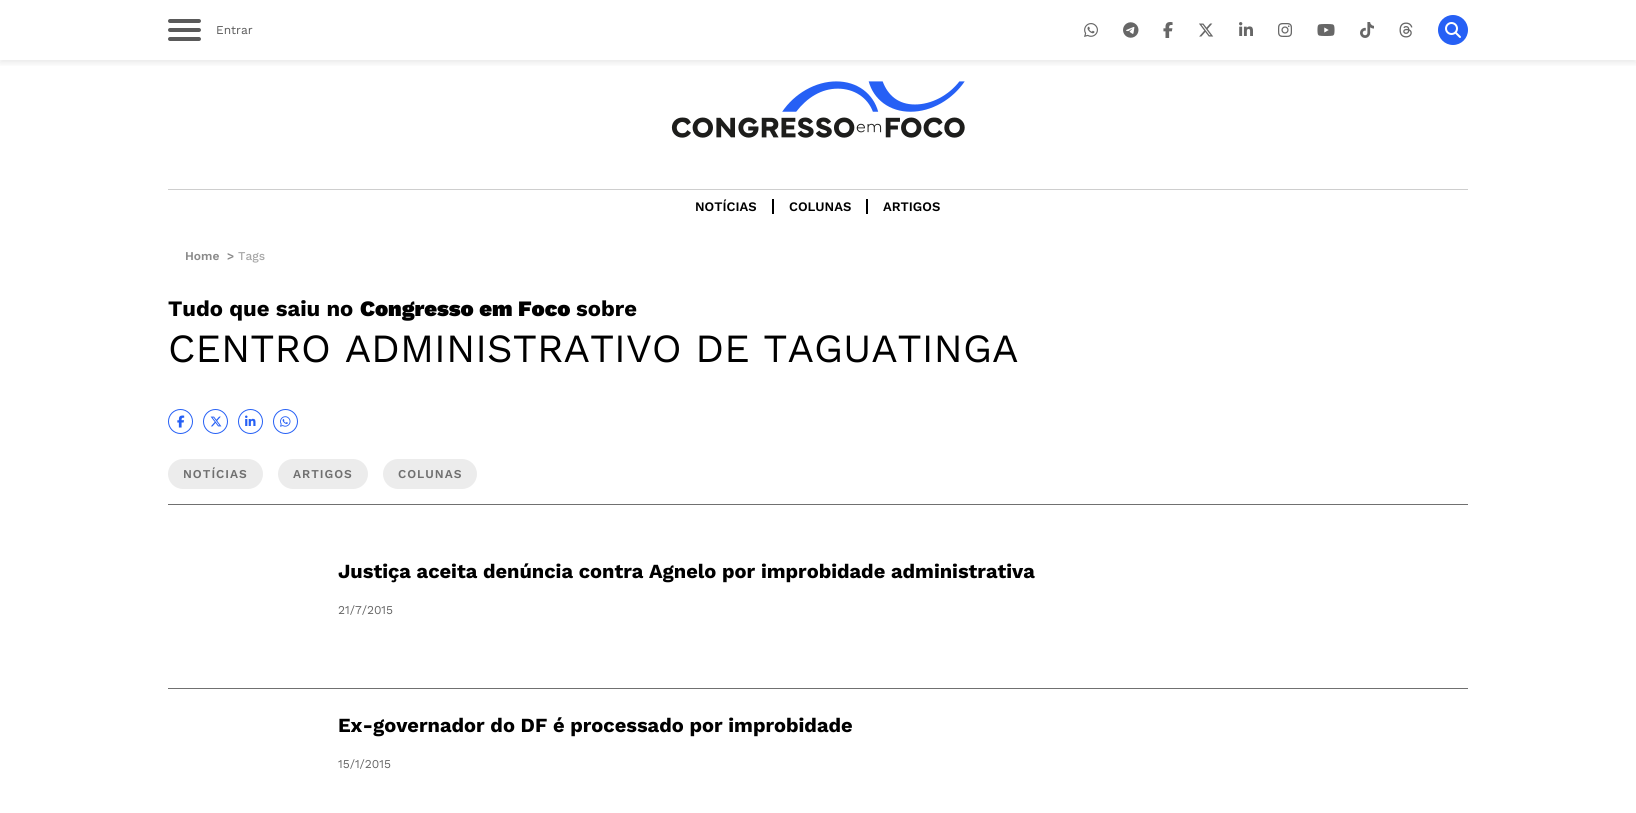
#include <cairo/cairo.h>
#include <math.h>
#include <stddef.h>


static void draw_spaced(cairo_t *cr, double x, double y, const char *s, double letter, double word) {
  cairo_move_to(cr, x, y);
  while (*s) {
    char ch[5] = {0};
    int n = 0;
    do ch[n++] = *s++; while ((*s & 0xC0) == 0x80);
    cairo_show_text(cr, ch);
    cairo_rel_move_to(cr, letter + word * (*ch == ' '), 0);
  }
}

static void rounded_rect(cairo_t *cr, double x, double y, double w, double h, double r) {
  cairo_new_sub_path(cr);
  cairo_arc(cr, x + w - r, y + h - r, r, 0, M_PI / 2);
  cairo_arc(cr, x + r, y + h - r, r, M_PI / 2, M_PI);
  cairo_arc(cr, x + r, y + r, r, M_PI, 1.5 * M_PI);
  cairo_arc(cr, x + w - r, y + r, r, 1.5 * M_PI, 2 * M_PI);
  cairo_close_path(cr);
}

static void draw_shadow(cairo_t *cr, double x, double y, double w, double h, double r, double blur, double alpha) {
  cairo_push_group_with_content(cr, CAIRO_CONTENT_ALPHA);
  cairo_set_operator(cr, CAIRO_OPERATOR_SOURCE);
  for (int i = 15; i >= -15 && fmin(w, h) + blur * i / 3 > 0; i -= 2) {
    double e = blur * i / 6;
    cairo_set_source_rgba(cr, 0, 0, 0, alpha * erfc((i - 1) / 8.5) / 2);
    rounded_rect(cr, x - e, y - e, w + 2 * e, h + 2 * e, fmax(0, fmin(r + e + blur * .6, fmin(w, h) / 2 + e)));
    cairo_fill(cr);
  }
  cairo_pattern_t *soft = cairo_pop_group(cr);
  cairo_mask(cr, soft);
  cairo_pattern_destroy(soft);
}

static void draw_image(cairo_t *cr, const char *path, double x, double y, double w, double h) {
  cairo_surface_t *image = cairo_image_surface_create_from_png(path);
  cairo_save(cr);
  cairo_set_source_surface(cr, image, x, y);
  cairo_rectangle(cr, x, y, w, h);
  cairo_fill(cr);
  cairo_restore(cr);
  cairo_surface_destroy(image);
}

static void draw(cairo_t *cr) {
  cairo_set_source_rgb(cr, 1, 1, 1);
  cairo_paint(cr);
  cairo_save(cr);
  cairo_rectangle(cr, 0, 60, 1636, 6);
  cairo_clip(cr);
  cairo_set_source_rgb(cr, 122 / 255.0, 122 / 255.0, 122 / 255.0);
  draw_shadow(cr, 0, 3, 1636, 60, 0, 3, 0.16);
  cairo_restore(cr);
  cairo_set_source_rgb(cr, 90 / 255.0, 90 / 255.0, 90 / 255.0);
  rounded_rect(cr, 168, 19, 33, 4, 2);
  cairo_fill(cr);
  rounded_rect(cr, 168, 28, 33, 4, 2);
  cairo_fill(cr);
  rounded_rect(cr, 168, 37, 33, 4, 2);
  cairo_fill(cr);
  draw_image(cr, "images/1.png", 1084, 23, 14, 14);
  draw_image(cr, "images/2.png", 1123, 22, 16, 16);
  draw_image(cr, "images/3.png", 1163, 22, 10, 16);
  draw_image(cr, "images/4.png", 1199, 23, 15, 14);
  draw_image(cr, "images/5.png", 1239, 22, 14, 14);
  draw_image(cr, "images/6.png", 1278, 23, 14, 14);
  draw_image(cr, "images/7.png", 1317, 24, 18, 12);
  draw_image(cr, "images/8.png", 1360, 22, 14, 16);
  draw_image(cr, "images/9.png", 1399, 22, 14, 16);
  cairo_set_source_rgb(cr, 38 / 255.0, 96 / 255.0, 245 / 255.0);
  cairo_arc(cr, 1453, 30, 15, 0, 2 * M_PI);
  cairo_fill(cr);
  draw_image(cr, "images/10.png", 1445, 22, 16, 16);
  draw_image(cr, "images/11.png", 671, 81, 294, 57);
  cairo_set_source_rgb(cr, 206 / 255.0, 206 / 255.0, 206 / 255.0);
  cairo_rectangle(cr, 168, 189, 1300, 1);
  cairo_fill(cr);
  cairo_set_source_rgb(cr, 0, 0, 0);
  cairo_rectangle(cr, 772, 199, 2, 15);
  cairo_fill(cr);
  cairo_rectangle(cr, 866, 199, 2, 15);
  cairo_fill(cr);
  cairo_arc(cr, 180.5, 421.5, 12, 0, 2 * M_PI);
  cairo_set_source_rgb(cr, 38 / 255.0, 96 / 255.0, 245 / 255.0);
  cairo_set_line_width(cr, 1);
  cairo_stroke(cr);
  draw_image(cr, "images/12.png", 177, 415, 8, 13);
  cairo_arc(cr, 215.5, 421.5, 12, 0, 2 * M_PI);
  cairo_stroke(cr);
  draw_image(cr, "images/13.png", 210, 416, 12, 11);
  cairo_arc(cr, 250.5, 421.5, 12, 0, 2 * M_PI);
  cairo_stroke(cr);
  draw_image(cr, "images/14.png", 245, 415, 11, 11);
  cairo_arc(cr, 285.5, 421.5, 12, 0, 2 * M_PI);
  cairo_stroke(cr);
  draw_image(cr, "images/15.png", 280, 416, 11, 11);
  cairo_set_source_rgb(cr, 112 / 255.0, 112 / 255.0, 112 / 255.0);
  cairo_rectangle(cr, 168, 504, 1300, 1);
  cairo_fill(cr);
  cairo_set_source_rgb(cr, 236 / 255.0, 236 / 255.0, 236 / 255.0);
  rounded_rect(cr, 168, 459, 95, 30, 15);
  cairo_fill(cr);
  rounded_rect(cr, 278, 459, 90, 30, 15);
  cairo_fill(cr);
  rounded_rect(cr, 383, 459, 94, 30, 15);
  cairo_fill(cr);
  cairo_set_source_rgb(cr, 112 / 255.0, 112 / 255.0, 112 / 255.0);
  cairo_rectangle(cr, 168, 688, 1300, 1);
  cairo_fill(cr);
  cairo_select_font_face(cr, "Work Sans", CAIRO_FONT_SLANT_NORMAL, CAIRO_FONT_WEIGHT_NORMAL);
  cairo_set_font_size(cr, 12);
  cairo_set_source_rgb(cr, 90 / 255.0, 90 / 255.0, 90 / 255.0);
  cairo_move_to(cr, 216, 34);
  cairo_show_text(cr, "Entrar");
  cairo_select_font_face(cr, "Work Sans SemiBold", CAIRO_FONT_SLANT_NORMAL, CAIRO_FONT_WEIGHT_NORMAL);
  cairo_set_font_size(cr, 13);
  cairo_set_source_rgb(cr, 0, 0, 0);
  cairo_move_to(cr, 695, 211);
  cairo_show_text(cr, "NOTÍCIAS");
  cairo_move_to(cr, 789, 211);
  cairo_show_text(cr, "COLUNAS");
  cairo_move_to(cr, 883, 211);
  cairo_show_text(cr, "ARTIGOS");
  cairo_set_font_size(cr, 12);
  cairo_set_source_rgb(cr, 138 / 255.0, 138 / 255.0, 138 / 255.0);
  cairo_move_to(cr, 185, 260);
  cairo_show_text(cr, "Home");
  cairo_move_to(cr, 227, 260);
  cairo_show_text(cr, ">");
  cairo_select_font_face(cr, "Work Sans Medium", CAIRO_FONT_SLANT_NORMAL, CAIRO_FONT_WEIGHT_NORMAL);
  cairo_set_source_rgb(cr, 167 / 255.0, 167 / 255.0, 167 / 255.0);
  cairo_move_to(cr, 238, 260);
  cairo_show_text(cr, "Tags");
  cairo_select_font_face(cr, "Work Sans", CAIRO_FONT_SLANT_NORMAL, CAIRO_FONT_WEIGHT_BOLD);
  cairo_set_font_size(cr, 22);
  cairo_set_source_rgb(cr, 0, 0, 0);
  cairo_move_to(cr, 168, 316);
  cairo_show_text(cr, "Tudo que saiu no");
  cairo_select_font_face(cr, "Work Sans Black", CAIRO_FONT_SLANT_NORMAL, CAIRO_FONT_WEIGHT_NORMAL);
  cairo_move_to(cr, 360, 316);
  cairo_show_text(cr, "Congresso em Foco");
  cairo_select_font_face(cr, "Work Sans", CAIRO_FONT_SLANT_NORMAL, CAIRO_FONT_WEIGHT_BOLD);
  cairo_move_to(cr, 576, 316);
  cairo_show_text(cr, "sobre");
  cairo_select_font_face(cr, "Work Sans", CAIRO_FONT_SLANT_NORMAL, CAIRO_FONT_WEIGHT_NORMAL);
  cairo_set_font_size(cr, 40);
  cairo_move_to(cr, 168, 362);
  cairo_show_text(cr, "CENTRO ADMINISTRATIVO DE TAGUATINGA");
  cairo_select_font_face(cr, "Work Sans SemiBold", CAIRO_FONT_SLANT_NORMAL, CAIRO_FONT_WEIGHT_NORMAL);
  cairo_set_font_size(cr, 12);
  cairo_set_source_rgb(cr, 112 / 255.0, 112 / 255.0, 112 / 255.0);
  draw_spaced(cr, 183, 478, "NOTÍCIAS", 1, 0);
  draw_spaced(cr, 293, 478, "ARTIGOS", 1, 0);
  draw_spaced(cr, 398, 478, "COLUNAS", 1, 0);
  cairo_select_font_face(cr, "Work Sans", CAIRO_FONT_SLANT_NORMAL, CAIRO_FONT_WEIGHT_BOLD);
  cairo_set_font_size(cr, 20);
  cairo_set_source_rgb(cr, 0, 0, 0);
  cairo_move_to(cr, 338, 578);
  cairo_show_text(cr, "Justiça aceita denúncia contra Agnelo por improbidade administrativa");
  cairo_select_font_face(cr, "Work Sans", CAIRO_FONT_SLANT_NORMAL, CAIRO_FONT_WEIGHT_NORMAL);
  cairo_set_font_size(cr, 12);
  cairo_set_source_rgb(cr, 103 / 255.0, 103 / 255.0, 103 / 255.0);
  cairo_move_to(cr, 338, 614);
  cairo_show_text(cr, "21/7/2015");
  cairo_select_font_face(cr, "Work Sans", CAIRO_FONT_SLANT_NORMAL, CAIRO_FONT_WEIGHT_BOLD);
  cairo_set_font_size(cr, 20);
  cairo_set_source_rgb(cr, 0, 0, 0);
  cairo_move_to(cr, 338, 732);
  cairo_show_text(cr, "Ex-governador do DF é processado por improbidade");
  cairo_select_font_face(cr, "Work Sans", CAIRO_FONT_SLANT_NORMAL, CAIRO_FONT_WEIGHT_NORMAL);
  cairo_set_font_size(cr, 12);
  cairo_set_source_rgb(cr, 103 / 255.0, 103 / 255.0, 103 / 255.0);
  cairo_move_to(cr, 338, 768);
  cairo_show_text(cr, "15/1/2015");
}

int main(void) {
  cairo_surface_t *surface = cairo_image_surface_create(CAIRO_FORMAT_RGB24, 1636, 813);
  cairo_t *cr = cairo_create(surface);
  cairo_font_options_t *options = cairo_font_options_create();
  cairo_font_options_set_hint_metrics(options, CAIRO_HINT_METRICS_OFF);
  cairo_font_options_set_hint_style(options, CAIRO_HINT_STYLE_NONE);
  cairo_set_font_options(cr, options);
  cairo_set_miter_limit(cr, 4);
  draw(cr);
  cairo_surface_write_to_png(surface, "out.png");
  cairo_font_options_destroy(options);
  cairo_destroy(cr);
  cairo_surface_destroy(surface);
  return 0;
}
